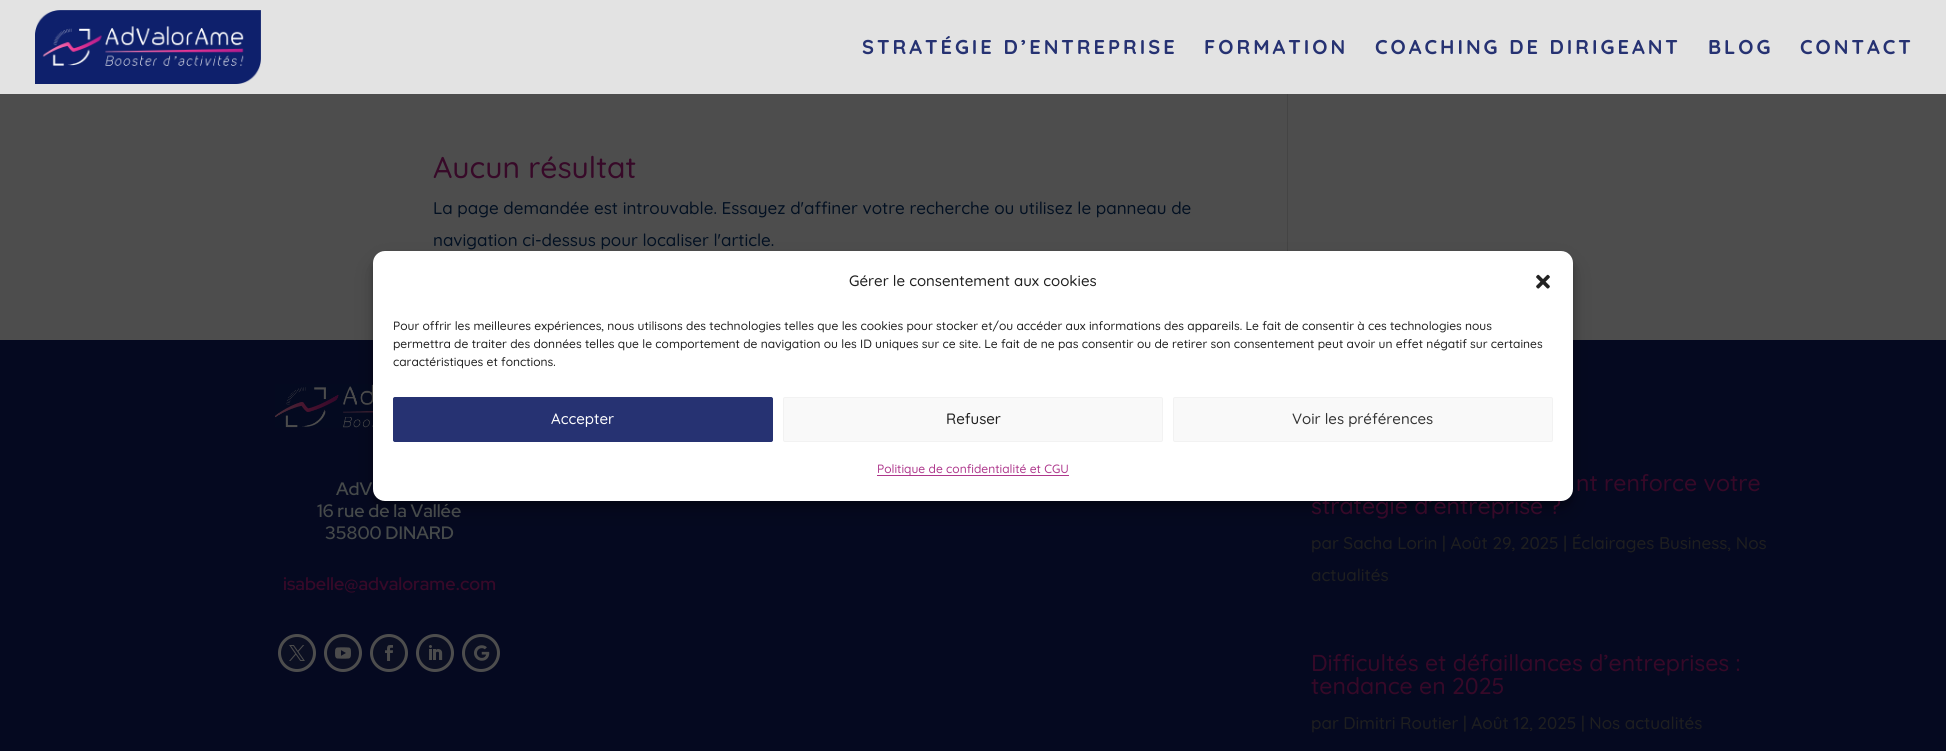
#include <cairo/cairo.h>
#include <math.h>
#include <stddef.h>


static void draw_spaced(cairo_t *cr, double x, double y, const char *s, double letter, double word) {
  cairo_move_to(cr, x, y);
  while (*s) {
    char ch[5] = {0};
    int n = 0;
    do ch[n++] = *s++; while ((*s & 0xC0) == 0x80);
    cairo_show_text(cr, ch);
    cairo_rel_move_to(cr, letter + word * (*ch == ' '), 0);
  }
}

static void rounded_rect(cairo_t *cr, double x, double y, double w, double h, double r) {
  cairo_new_sub_path(cr);
  cairo_arc(cr, x + w - r, y + h - r, r, 0, M_PI / 2);
  cairo_arc(cr, x + r, y + h - r, r, M_PI / 2, M_PI);
  cairo_arc(cr, x + r, y + r, r, M_PI, 1.5 * M_PI);
  cairo_arc(cr, x + w - r, y + r, r, 1.5 * M_PI, 2 * M_PI);
  cairo_close_path(cr);
}

static void draw_shadow(cairo_t *cr, double x, double y, double w, double h, double r, double blur, double alpha) {
  cairo_push_group_with_content(cr, CAIRO_CONTENT_ALPHA);
  cairo_set_operator(cr, CAIRO_OPERATOR_SOURCE);
  for (int i = 15; i >= -15 && fmin(w, h) + blur * i / 3 > 0; i -= 2) {
    double e = blur * i / 6;
    cairo_set_source_rgba(cr, 0, 0, 0, alpha * erfc((i - 1) / 8.5) / 2);
    rounded_rect(cr, x - e, y - e, w + 2 * e, h + 2 * e, fmax(0, fmin(r + e + blur * .6, fmin(w, h) / 2 + e)));
    cairo_fill(cr);
  }
  cairo_pattern_t *soft = cairo_pop_group(cr);
  cairo_mask(cr, soft);
  cairo_pattern_destroy(soft);
}

static void draw_image(cairo_t *cr, const char *path, double x, double y, double w, double h) {
  cairo_surface_t *image = cairo_image_surface_create_from_png(path);
  cairo_save(cr);
  cairo_set_source_surface(cr, image, x, y);
  cairo_rectangle(cr, x, y, w, h);
  cairo_fill(cr);
  cairo_restore(cr);
  cairo_surface_destroy(image);
}

static void draw(cairo_t *cr) {
  cairo_set_source_rgb(cr, 77 / 255.0, 77 / 255.0, 77 / 255.0);
  cairo_paint(cr);
  cairo_set_source_rgb(cr, 227 / 255.0, 227 / 255.0, 227 / 255.0);
  cairo_rectangle(cr, 0, 0, 1946, 94);
  cairo_fill(cr);
  draw_image(cr, "images/1.png", 35, 10, 226, 74);
  cairo_set_source_rgb(cr, 68 / 255.0, 68 / 255.0, 68 / 255.0);
  cairo_rectangle(cr, 1287, 94, 1, 157);
  cairo_fill(cr);
  cairo_set_source_rgb(cr, 5 / 255.0, 9 / 255.0, 32 / 255.0);
  cairo_rectangle(cr, 0, 340, 1946, 411);
  cairo_fill(cr);
  draw_image(cr, "images/2.png", 275, 384, 98, 44);
  cairo_set_source_rgb(cr, 11 / 255.0, 15 / 255.0, 34 / 255.0);
  cairo_arc(cr, 297, 653, 17.5, 0, 2 * M_PI);
  cairo_fill_preserve(cr);
  cairo_set_source_rgb(cr, 77 / 255.0, 77 / 255.0, 77 / 255.0);
  cairo_set_line_width(cr, 3);
  cairo_stroke(cr);
  draw_image(cr, "images/3.png", 289, 645, 16, 16);
  cairo_set_source_rgb(cr, 11 / 255.0, 15 / 255.0, 34 / 255.0);
  cairo_arc(cr, 343, 653, 17.5, 0, 2 * M_PI);
  cairo_fill_preserve(cr);
  cairo_set_source_rgb(cr, 77 / 255.0, 77 / 255.0, 77 / 255.0);
  cairo_stroke(cr);
  draw_image(cr, "images/4.png", 335, 647, 16, 12);
  cairo_set_source_rgb(cr, 11 / 255.0, 15 / 255.0, 34 / 255.0);
  cairo_arc(cr, 389, 653, 17.5, 0, 2 * M_PI);
  cairo_fill_preserve(cr);
  cairo_set_source_rgb(cr, 77 / 255.0, 77 / 255.0, 77 / 255.0);
  cairo_stroke(cr);
  draw_image(cr, "images/5.png", 385, 645, 8, 16);
  cairo_set_source_rgb(cr, 11 / 255.0, 15 / 255.0, 34 / 255.0);
  cairo_arc(cr, 435, 653, 17.5, 0, 2 * M_PI);
  cairo_fill_preserve(cr);
  cairo_set_source_rgb(cr, 77 / 255.0, 77 / 255.0, 77 / 255.0);
  cairo_stroke(cr);
  draw_image(cr, "images/6.png", 429, 645, 14, 15);
  cairo_set_source_rgb(cr, 11 / 255.0, 15 / 255.0, 34 / 255.0);
  cairo_arc(cr, 481, 653, 17.5, 0, 2 * M_PI);
  cairo_fill_preserve(cr);
  cairo_set_source_rgb(cr, 77 / 255.0, 77 / 255.0, 77 / 255.0);
  cairo_stroke(cr);
  draw_image(cr, "images/7.png", 474, 645, 16, 16);
  cairo_set_source_rgb(cr, 0, 0, 0);
  draw_shadow(cr, 373, 257, 1200, 250, 12, 3, 0.23);
  draw_shadow(cr, 373, 261, 1200, 250, 12, 10, 0.19);
  cairo_select_font_face(cr, "Quicksand", CAIRO_FONT_SLANT_NORMAL, CAIRO_FONT_WEIGHT_BOLD);
  cairo_set_font_size(cr, 20);
  cairo_set_source_rgb(cr, 38 / 255.0, 50 / 255.0, 114 / 255.0);
  draw_spaced(cr, 862, 54, "STRATÉGIE D’ENTREPRISE", 3, 0);
  draw_spaced(cr, 1204, 54, "FORMATION", 3, 0);
  draw_spaced(cr, 1375, 54, "COACHING DE DIRIGEANT", 3, 0);
  draw_spaced(cr, 1708, 54, "BLOG", 3, 0);
  draw_spaced(cr, 1800, 54, "CONTACT", 3, 0);
  cairo_select_font_face(cr, "Quicksand Medium", CAIRO_FONT_SLANT_NORMAL, CAIRO_FONT_WEIGHT_NORMAL);
  cairo_set_font_size(cr, 30);
  cairo_set_source_rgb(cr, 55 / 255.0, 9 / 255.0, 40 / 255.0);
  cairo_move_to(cr, 433, 178);
  cairo_show_text(cr, "Aucun résultat");
  cairo_set_font_size(cr, 17);
  cairo_set_source_rgb(cr, 2 / 255.0, 16 / 255.0, 34 / 255.0);
  cairo_move_to(cr, 433, 214);
  cairo_show_text(cr, "La page demandée est introuvable. Essayez d'affiner votre recherche ou utilisez le panneau de");
  cairo_move_to(cr, 433, 246);
  cairo_show_text(cr, "navigation ci-dessus pour localiser l'article.");
  cairo_select_font_face(cr, "Red Hat Display SemiBold", CAIRO_FONT_SLANT_NORMAL, CAIRO_FONT_WEIGHT_NORMAL);
  cairo_set_font_size(cr, 18);
  cairo_set_source_rgb(cr, 70 / 255.0, 74 / 255.0, 74 / 255.0);
  cairo_move_to(cr, 336, 495);
  cairo_show_text(cr, "AdV");
  cairo_move_to(cr, 317, 517);
  cairo_show_text(cr, "16 rue de la Vallée");
  cairo_move_to(cr, 325, 539);
  cairo_show_text(cr, "35800 DINARD");
  cairo_set_source_rgb(cr, 55 / 255.0, 9 / 255.0, 40 / 255.0);
  cairo_move_to(cr, 283, 590);
  cairo_show_text(cr, "isabelle@advalorame.com");
  cairo_select_font_face(cr, "Quicksand Medium", CAIRO_FONT_SLANT_NORMAL, CAIRO_FONT_WEIGHT_NORMAL);
  cairo_set_font_size(cr, 23);
  cairo_move_to(cr, 1576, 491);
  cairo_show_text(cr, "nt renforce votre");
  cairo_move_to(cr, 1311, 514);
  cairo_show_text(cr, "stratégie d’entreprise ?");
  cairo_set_font_size(cr, 17);
  cairo_set_source_rgb(cr, 31 / 255.0, 31 / 255.0, 31 / 255.0);
  cairo_move_to(cr, 1311, 549);
  cairo_show_text(cr, "par Sacha Lorin | Août 29, 2025 | Éclairages Business, Nos");
  cairo_move_to(cr, 1311, 581);
  cairo_show_text(cr, "actualités");
  cairo_set_font_size(cr, 23);
  cairo_set_source_rgb(cr, 55 / 255.0, 9 / 255.0, 40 / 255.0);
  cairo_move_to(cr, 1311, 671);
  cairo_show_text(cr, "Difficultés et défaillances d’entreprises :");
  cairo_move_to(cr, 1311, 694);
  cairo_show_text(cr, "tendance en 2025");
  cairo_set_font_size(cr, 17);
  cairo_set_source_rgb(cr, 31 / 255.0, 31 / 255.0, 31 / 255.0);
  cairo_move_to(cr, 1311, 729);
  cairo_show_text(cr, "par Dimitri Routier | Août 12, 2025 | Nos actualités");
  cairo_set_source_rgb(cr, 1, 1, 1);
  rounded_rect(cr, 373, 251, 1200, 250, 12);
  cairo_fill(cr);
  cairo_set_font_size(cr, 15);
  cairo_set_source_rgb(cr, 31 / 255.0, 31 / 255.0, 31 / 255.0);
  cairo_move_to(cr, 849, 286);
  cairo_show_text(cr, "Gérer le consentement aux cookies");
  draw_image(cr, "images/8.png", 1536, 274, 14, 15);
  cairo_set_font_size(cr, 12);
  cairo_move_to(cr, 393, 330);
  cairo_show_text(cr, "Pour offrir les meilleures expériences, nous utilisons des technologies telles que les cookies pour stocker et/ou accéder aux informations des appareils. Le fait de consentir à ces technologies nous");
  cairo_move_to(cr, 393, 348);
  cairo_show_text(cr, "permettra de traiter des données telles que le comportement de navigation ou les ID uniques sur ce site. Le fait de ne pas consentir ou de retirer son consentement peut avoir un effet négatif sur certaines");
  cairo_move_to(cr, 393, 366);
  cairo_show_text(cr, "caractéristiques et fonctions.");
  cairo_set_source_rgb(cr, 38 / 255.0, 50 / 255.0, 114 / 255.0);
  rounded_rect(cr, 393.5, 397.5, 379, 44, 1.5);
  cairo_fill_preserve(cr);
  cairo_set_line_width(cr, 1);
  cairo_stroke(cr);
  cairo_set_font_size(cr, 15);
  cairo_set_source_rgb(cr, 1, 1, 1);
  cairo_move_to(cr, 551, 424);
  cairo_show_text(cr, "Accepter");
  cairo_set_source_rgb(cr, 249 / 255.0, 249 / 255.0, 249 / 255.0);
  rounded_rect(cr, 783.5, 397.5, 379, 44, 1.5);
  cairo_fill_preserve(cr);
  cairo_set_source_rgb(cr, 242 / 255.0, 242 / 255.0, 242 / 255.0);
  cairo_stroke(cr);
  cairo_set_source_rgb(cr, 31 / 255.0, 31 / 255.0, 31 / 255.0);
  cairo_move_to(cr, 946, 424);
  cairo_show_text(cr, "Refuser");
  cairo_set_source_rgb(cr, 249 / 255.0, 249 / 255.0, 249 / 255.0);
  rounded_rect(cr, 1173.5, 397.5, 379, 44, 1.5);
  cairo_fill_preserve(cr);
  cairo_set_source_rgb(cr, 242 / 255.0, 242 / 255.0, 242 / 255.0);
  cairo_stroke(cr);
  cairo_set_source_rgb(cr, 51 / 255.0, 51 / 255.0, 51 / 255.0);
  cairo_move_to(cr, 1292, 424);
  cairo_show_text(cr, "Voir les préférences");
  cairo_set_source_rgb(cr, 174 / 255.0, 55 / 255.0, 140 / 255.0);
  cairo_rectangle(cr, 877, 475, 192, 1);
  cairo_fill(cr);
  cairo_set_font_size(cr, 12);
  cairo_move_to(cr, 877, 473);
  cairo_show_text(cr, "Politique de confidentialité et CGU");
}

int main(void) {
  cairo_surface_t *surface = cairo_image_surface_create(CAIRO_FORMAT_RGB24, 1946, 751);
  cairo_t *cr = cairo_create(surface);
  cairo_font_options_t *options = cairo_font_options_create();
  cairo_font_options_set_hint_metrics(options, CAIRO_HINT_METRICS_OFF);
  cairo_font_options_set_hint_style(options, CAIRO_HINT_STYLE_NONE);
  cairo_set_font_options(cr, options);
  cairo_set_miter_limit(cr, 4);
  draw(cr);
  cairo_surface_write_to_png(surface, "out.png");
  cairo_font_options_destroy(options);
  cairo_destroy(cr);
  cairo_surface_destroy(surface);
  return 0;
}
